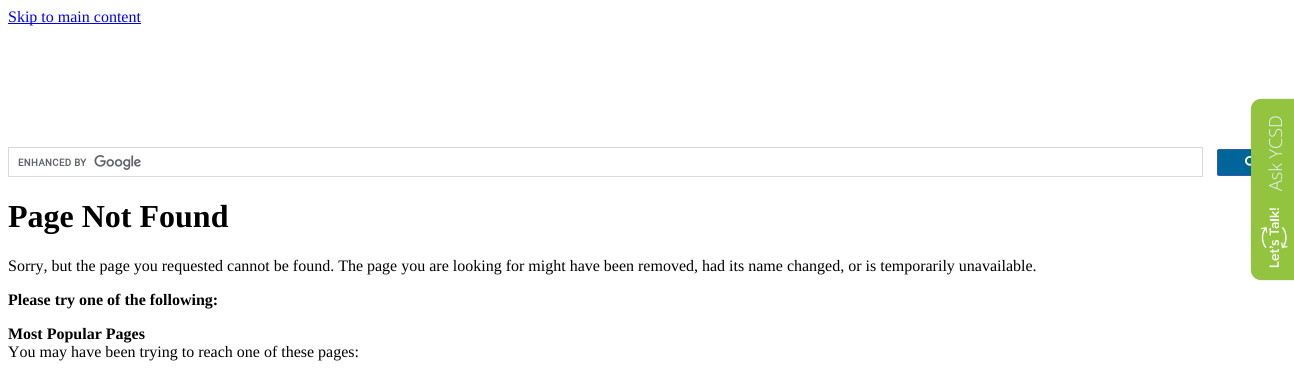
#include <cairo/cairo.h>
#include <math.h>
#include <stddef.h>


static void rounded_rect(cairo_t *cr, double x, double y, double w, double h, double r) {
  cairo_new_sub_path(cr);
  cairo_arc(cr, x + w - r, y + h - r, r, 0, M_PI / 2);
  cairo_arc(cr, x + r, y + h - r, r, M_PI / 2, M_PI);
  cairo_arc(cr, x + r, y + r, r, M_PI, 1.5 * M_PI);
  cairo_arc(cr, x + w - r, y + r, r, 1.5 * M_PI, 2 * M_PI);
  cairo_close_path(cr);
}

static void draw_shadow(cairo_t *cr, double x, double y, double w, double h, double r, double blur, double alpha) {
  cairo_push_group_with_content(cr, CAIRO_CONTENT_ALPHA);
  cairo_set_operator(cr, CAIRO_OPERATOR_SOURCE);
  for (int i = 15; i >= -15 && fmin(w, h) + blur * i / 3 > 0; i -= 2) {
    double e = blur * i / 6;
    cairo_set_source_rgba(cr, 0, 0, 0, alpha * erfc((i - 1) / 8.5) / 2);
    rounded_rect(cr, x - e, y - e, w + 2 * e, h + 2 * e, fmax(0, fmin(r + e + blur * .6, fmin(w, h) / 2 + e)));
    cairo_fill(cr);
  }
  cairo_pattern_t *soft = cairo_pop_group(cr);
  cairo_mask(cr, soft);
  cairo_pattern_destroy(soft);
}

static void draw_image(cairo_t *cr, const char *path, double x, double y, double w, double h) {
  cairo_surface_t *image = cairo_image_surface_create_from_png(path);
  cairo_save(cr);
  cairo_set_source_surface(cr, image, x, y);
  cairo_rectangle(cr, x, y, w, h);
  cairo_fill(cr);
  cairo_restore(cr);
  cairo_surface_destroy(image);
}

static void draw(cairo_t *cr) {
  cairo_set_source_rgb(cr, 1, 1, 1);
  cairo_paint(cr);
  cairo_set_source_rgb(cr, 0, 0, 238 / 255.0);
  cairo_rectangle(cr, 8, 23, 133, 1);
  cairo_fill(cr);
  cairo_rectangle(cr, 8.5, 147.5, 1194, 29);
  cairo_set_source_rgb(cr, 217 / 255.0, 217 / 255.0, 217 / 255.0);
  cairo_set_line_width(cr, 1);
  cairo_stroke(cr);
  draw_image(cr, "images/1.png", 18, 155, 123, 15);
  cairo_set_source_rgb(cr, 0, 102 / 255.0, 153 / 255.0);
  rounded_rect(cr, 1217.5, 149.5, 68, 26, 1.5);
  cairo_fill_preserve(cr);
  cairo_set_source_rgb(cr, 47 / 255.0, 91 / 255.0, 183 / 255.0);
  cairo_stroke(cr);
  draw_image(cr, "images/2.png", 1245, 156, 6, 10);
  cairo_set_source_rgb(cr, 0, 0, 0);
  draw_shadow(cr, 1251, 99, 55, 181, 10, 0.5, 0.22);
  cairo_set_source_rgb(cr, 146 / 255.0, 196 / 255.0, 64 / 255.0);
  cairo_new_path(cr);
  cairo_move_to(cr, 1261, 99);
  cairo_line_to(cr, 1294, 99);
  cairo_line_to(cr, 1294, 280);
  cairo_line_to(cr, 1261, 280);
  cairo_curve_to(cr, 1255.5, 280, 1251, 275.5, 1251, 270);
  cairo_line_to(cr, 1251, 109);
  cairo_curve_to(cr, 1251, 103.5, 1255.5, 99, 1261, 99);
  cairo_close_path(cr);
  cairo_fill(cr);
  draw_image(cr, "images/3.png", 1260, 208, 28, 60);
  cairo_select_font_face(cr, "Liberation Serif", CAIRO_FONT_SLANT_NORMAL, CAIRO_FONT_WEIGHT_NORMAL);
  cairo_set_font_size(cr, 16);
  cairo_set_source_rgb(cr, 0, 0, 238 / 255.0);
  cairo_move_to(cr, 8, 22);
  cairo_show_text(cr, "Skip to main content");
  cairo_select_font_face(cr, "Liberation Serif", CAIRO_FONT_SLANT_NORMAL, CAIRO_FONT_WEIGHT_BOLD);
  cairo_set_font_size(cr, 32);
  cairo_set_source_rgb(cr, 0, 0, 0);
  cairo_move_to(cr, 8, 227);
  cairo_show_text(cr, "Page Not Found");
  cairo_select_font_face(cr, "Liberation Serif", CAIRO_FONT_SLANT_NORMAL, CAIRO_FONT_WEIGHT_NORMAL);
  cairo_set_font_size(cr, 16);
  cairo_move_to(cr, 8, 271);
  cairo_show_text(cr, "Sorry, but the page you requested cannot be found. The page you are looking for might have been removed, had its name changed, or is temporarily unavailable.");
  cairo_select_font_face(cr, "Liberation Serif", CAIRO_FONT_SLANT_NORMAL, CAIRO_FONT_WEIGHT_BOLD);
  cairo_move_to(cr, 8, 305);
  cairo_show_text(cr, "Please try one of the following:");
  cairo_move_to(cr, 8, 339);
  cairo_show_text(cr, "Most Popular Pages");
  cairo_select_font_face(cr, "Liberation Serif", CAIRO_FONT_SLANT_NORMAL, CAIRO_FONT_WEIGHT_NORMAL);
  cairo_move_to(cr, 8, 357);
  cairo_show_text(cr, "You may have been trying to reach one of these pages:");
  cairo_select_font_face(cr, "Open Sans Light", CAIRO_FONT_SLANT_NORMAL, CAIRO_FONT_WEIGHT_NORMAL);
  cairo_set_font_size(cr, 18);
  cairo_set_source_rgb(cr, 233 / 255.0, 244 / 255.0, 1);
  cairo_save(cr);
  cairo_translate(cr, 1282, 191);
  cairo_rotate(cr, -90 * M_PI / 180);
  cairo_move_to(cr, 0, 0);
  cairo_show_text(cr, "Ask YCSD");
  cairo_restore(cr);
}

int main(void) {
  cairo_surface_t *surface = cairo_image_surface_create(CAIRO_FORMAT_RGB24, 1294, 379);
  cairo_t *cr = cairo_create(surface);
  cairo_font_options_t *options = cairo_font_options_create();
  cairo_font_options_set_hint_metrics(options, CAIRO_HINT_METRICS_OFF);
  cairo_font_options_set_hint_style(options, CAIRO_HINT_STYLE_NONE);
  cairo_set_font_options(cr, options);
  cairo_set_miter_limit(cr, 4);
  draw(cr);
  cairo_surface_write_to_png(surface, "out.png");
  cairo_font_options_destroy(options);
  cairo_destroy(cr);
  cairo_surface_destroy(surface);
  return 0;
}
